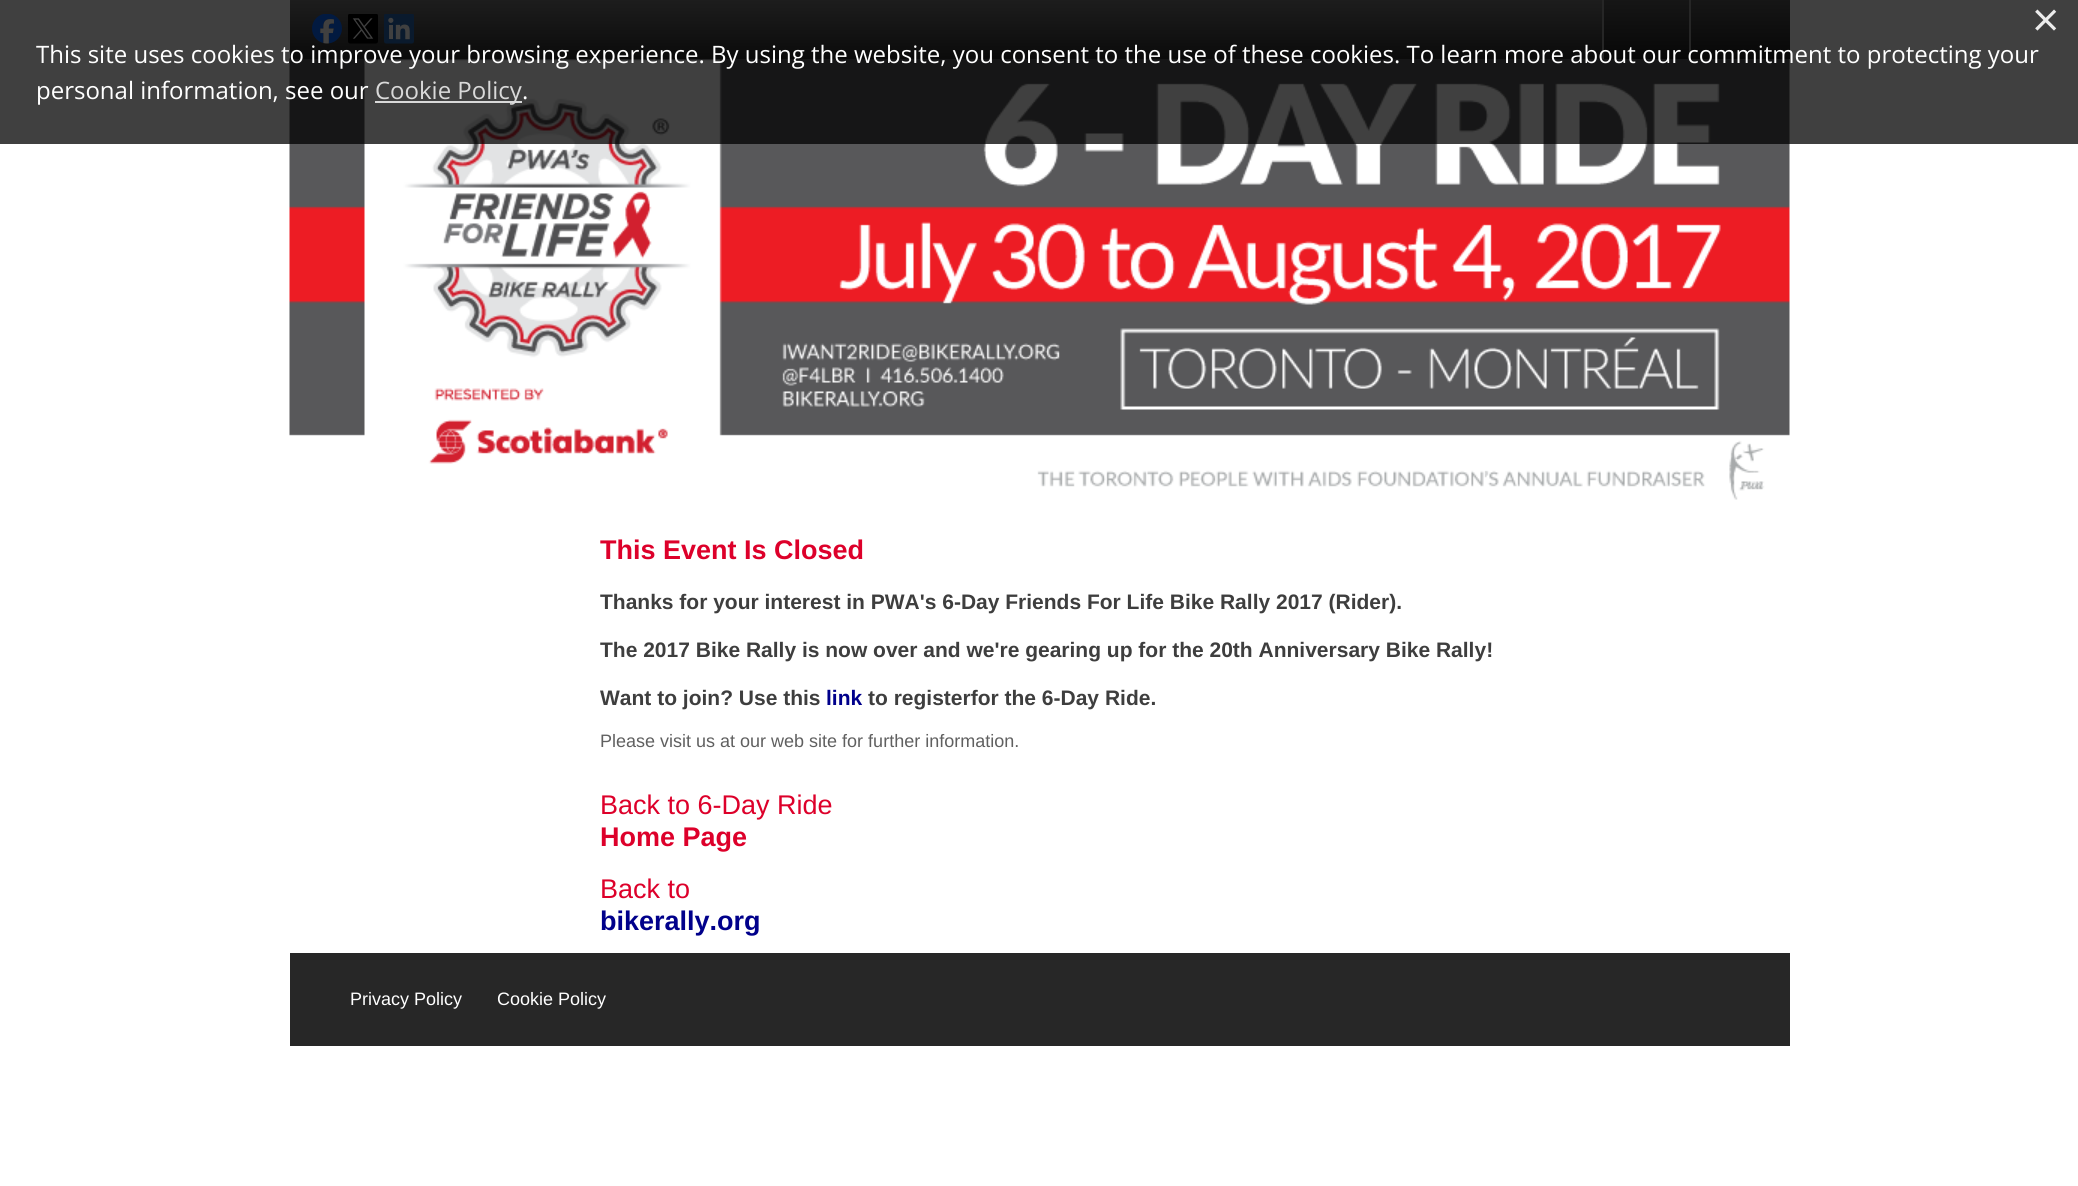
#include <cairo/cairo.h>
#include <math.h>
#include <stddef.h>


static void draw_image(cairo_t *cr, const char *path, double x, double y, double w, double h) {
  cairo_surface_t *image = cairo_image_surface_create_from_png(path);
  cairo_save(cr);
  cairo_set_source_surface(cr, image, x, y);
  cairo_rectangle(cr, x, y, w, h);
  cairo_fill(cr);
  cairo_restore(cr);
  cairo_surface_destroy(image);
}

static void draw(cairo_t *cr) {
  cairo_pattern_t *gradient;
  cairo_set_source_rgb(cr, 1, 1, 1);
  cairo_paint(cr);
  draw_image(cr, "images/4.png", 289, 58, 1501, 442);
  gradient = cairo_pattern_create_linear(1040, 0, 1040, 59);
  cairo_pattern_add_color_stop_rgba(gradient, 0, 115 / 255.0, 115 / 255.0, 115 / 255.0, 1);
  cairo_pattern_add_color_stop_rgba(gradient, 1, 42 / 255.0, 42 / 255.0, 42 / 255.0, 1);
  cairo_set_source(cr, gradient);
  cairo_pattern_destroy(gradient);
  cairo_rectangle(cr, 290, 0, 1312, 59);
  cairo_fill(cr);
  draw_image(cr, "images/1.png", 312, 14, 30, 30);
  draw_image(cr, "images/2.png", 348, 14, 30, 30);
  draw_image(cr, "images/3.png", 384, 14, 30, 30);
  gradient = cairo_pattern_create_linear(1646, 0, 1646, 59);
  cairo_pattern_add_color_stop_rgba(gradient, 0, 86 / 255.0, 86 / 255.0, 86 / 255.0, 1);
  cairo_pattern_add_color_stop_rgba(gradient, 1, 28 / 255.0, 28 / 255.0, 28 / 255.0, 1);
  cairo_set_source(cr, gradient);
  cairo_pattern_destroy(gradient);
  cairo_rectangle(cr, 1604, 0, 85, 59);
  cairo_fill(cr);
  cairo_set_source_rgb(cr, 150 / 255.0, 150 / 255.0, 150 / 255.0);
  cairo_rectangle(cr, 1602, 0, 2, 59);
  cairo_fill(cr);
  gradient = cairo_pattern_create_linear(1740, 0, 1740, 59);
  cairo_pattern_add_color_stop_rgba(gradient, 0, 86 / 255.0, 86 / 255.0, 86 / 255.0, 1);
  cairo_pattern_add_color_stop_rgba(gradient, 1, 28 / 255.0, 28 / 255.0, 28 / 255.0, 1);
  cairo_set_source(cr, gradient);
  cairo_pattern_destroy(gradient);
  cairo_rectangle(cr, 1691, 0, 99, 59);
  cairo_fill(cr);
  cairo_set_source_rgb(cr, 150 / 255.0, 150 / 255.0, 150 / 255.0);
  cairo_rectangle(cr, 1689, 0, 2, 59);
  cairo_fill(cr);
  cairo_set_source_rgba(cr, 0, 0, 0, 0.75);
  cairo_rectangle(cr, 0, 0, 2078, 144);
  cairo_fill(cr);
  cairo_set_source_rgba(cr, 1, 1, 1, 0.8);
  cairo_rectangle(cr, 375, 101, 147, 2);
  cairo_fill(cr);
  cairo_set_source_rgb(cr, 39 / 255.0, 39 / 255.0, 39 / 255.0);
  cairo_rectangle(cr, 290, 953, 1500, 93);
  cairo_fill(cr);
  cairo_select_font_face(cr, "Open Sans", CAIRO_FONT_SLANT_NORMAL, CAIRO_FONT_WEIGHT_NORMAL);
  cairo_set_font_size(cr, 48);
  cairo_set_source_rgb(cr, 236 / 255.0, 236 / 255.0, 236 / 255.0);
  cairo_move_to(cr, 2032, 37);
  cairo_show_text(cr, "×");
  cairo_set_font_size(cr, 24);
  cairo_set_source_rgb(cr, 1, 1, 1);
  cairo_move_to(cr, 36, 63);
  cairo_show_text(cr, "This site uses cookies to improve your browsing experience. By using the website, you consent to the use of these cookies. To learn more about our commitment to protecting your");
  cairo_move_to(cr, 36, 99);
  cairo_show_text(cr, "personal information, see our");
  cairo_set_source_rgb(cr, 217 / 255.0, 217 / 255.0, 217 / 255.0);
  cairo_move_to(cr, 375, 99);
  cairo_show_text(cr, "Cookie Policy");
  cairo_set_source_rgb(cr, 1, 1, 1);
  cairo_move_to(cr, 522, 99);
  cairo_show_text(cr, ".");
  cairo_select_font_face(cr, "Liberation Sans", CAIRO_FONT_SLANT_NORMAL, CAIRO_FONT_WEIGHT_BOLD);
  cairo_set_font_size(cr, 27);
  cairo_set_source_rgb(cr, 221 / 255.0, 0, 42 / 255.0);
  cairo_move_to(cr, 600, 559);
  cairo_show_text(cr, "This Event Is Closed");
  cairo_set_font_size(cr, 21);
  cairo_set_source_rgb(cr, 62 / 255.0, 62 / 255.0, 62 / 255.0);
  cairo_move_to(cr, 600, 609);
  cairo_show_text(cr, "Thanks for your interest in PWA's 6-Day Friends For Life Bike Rally 2017 (Rider).");
  cairo_move_to(cr, 600, 657);
  cairo_show_text(cr, "The 2017 Bike Rally is now over and we're gearing up for the 20th Anniversary Bike Rally!");
  cairo_move_to(cr, 600, 705);
  cairo_show_text(cr, "Want to join? Use this");
  cairo_set_source_rgb(cr, 0, 0, 139 / 255.0);
  cairo_move_to(cr, 826, 705);
  cairo_show_text(cr, "link");
  cairo_set_source_rgb(cr, 62 / 255.0, 62 / 255.0, 62 / 255.0);
  cairo_move_to(cr, 868, 705);
  cairo_show_text(cr, "to registerfor the 6-Day Ride.");
  cairo_select_font_face(cr, "Liberation Sans", CAIRO_FONT_SLANT_NORMAL, CAIRO_FONT_WEIGHT_NORMAL);
  cairo_set_font_size(cr, 18);
  cairo_set_source_rgb(cr, 96 / 255.0, 96 / 255.0, 96 / 255.0);
  cairo_move_to(cr, 600, 747);
  cairo_show_text(cr, "Please visit us at our web site for further information.");
  cairo_set_font_size(cr, 27);
  cairo_set_source_rgb(cr, 221 / 255.0, 0, 42 / 255.0);
  cairo_move_to(cr, 600, 814);
  cairo_show_text(cr, "Back to 6-Day Ride");
  cairo_select_font_face(cr, "Liberation Sans", CAIRO_FONT_SLANT_NORMAL, CAIRO_FONT_WEIGHT_BOLD);
  cairo_move_to(cr, 600, 846);
  cairo_show_text(cr, "Home Page");
  cairo_select_font_face(cr, "Liberation Sans", CAIRO_FONT_SLANT_NORMAL, CAIRO_FONT_WEIGHT_NORMAL);
  cairo_move_to(cr, 600, 898);
  cairo_show_text(cr, "Back to");
  cairo_select_font_face(cr, "Liberation Sans", CAIRO_FONT_SLANT_NORMAL, CAIRO_FONT_WEIGHT_BOLD);
  cairo_set_source_rgb(cr, 0, 0, 139 / 255.0);
  cairo_move_to(cr, 600, 930);
  cairo_show_text(cr, "bikerally.org");
  cairo_select_font_face(cr, "Liberation Sans", CAIRO_FONT_SLANT_NORMAL, CAIRO_FONT_WEIGHT_NORMAL);
  cairo_set_font_size(cr, 18);
  cairo_set_source_rgb(cr, 1, 1, 1);
  cairo_move_to(cr, 350, 1005);
  cairo_show_text(cr, "Privacy Policy");
  cairo_move_to(cr, 497, 1005);
  cairo_show_text(cr, "Cookie Policy");
}

int main(void) {
  cairo_surface_t *surface = cairo_image_surface_create(CAIRO_FORMAT_RGB24, 2078, 1186);
  cairo_t *cr = cairo_create(surface);
  cairo_font_options_t *options = cairo_font_options_create();
  cairo_font_options_set_hint_metrics(options, CAIRO_HINT_METRICS_OFF);
  cairo_font_options_set_hint_style(options, CAIRO_HINT_STYLE_NONE);
  cairo_set_font_options(cr, options);
  cairo_set_miter_limit(cr, 4);
  draw(cr);
  cairo_surface_write_to_png(surface, "out.png");
  cairo_font_options_destroy(options);
  cairo_destroy(cr);
  cairo_surface_destroy(surface);
  return 0;
}
